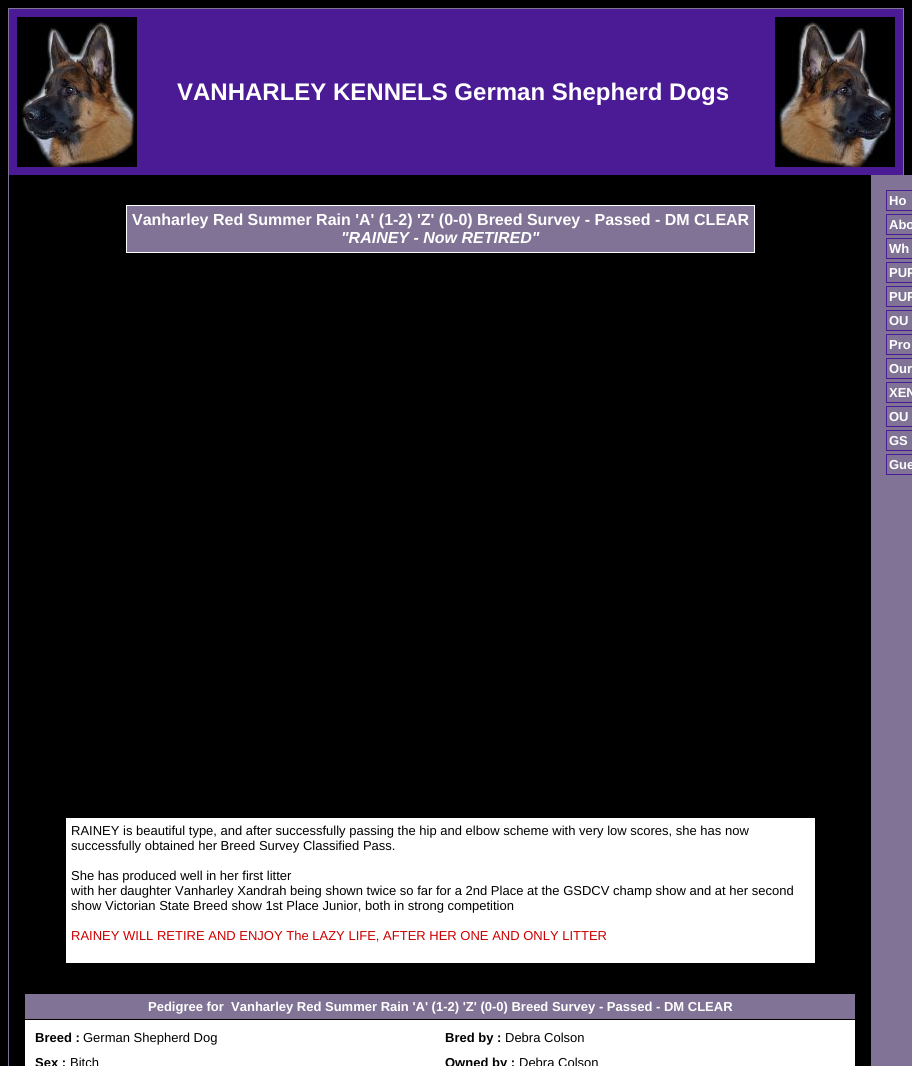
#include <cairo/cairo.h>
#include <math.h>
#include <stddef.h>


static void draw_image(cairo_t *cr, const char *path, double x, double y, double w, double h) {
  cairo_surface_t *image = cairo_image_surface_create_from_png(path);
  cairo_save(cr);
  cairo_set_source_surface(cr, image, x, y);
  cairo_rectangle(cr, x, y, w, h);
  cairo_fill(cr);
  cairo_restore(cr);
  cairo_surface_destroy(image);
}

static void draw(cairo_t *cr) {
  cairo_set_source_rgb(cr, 0, 0, 0);
  cairo_paint(cr);
  cairo_rectangle(cr, 8.5, 8.5, 895, 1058);
  cairo_set_source_rgb(cr, 128 / 255.0, 115 / 255.0, 149 / 255.0);
  cairo_set_line_width(cr, 1);
  cairo_stroke(cr);
  cairo_set_source_rgb(cr, 75 / 255.0, 26 / 255.0, 149 / 255.0);
  cairo_rectangle(cr, 9, 9, 894, 166);
  cairo_fill(cr);
  draw_image(cr, "images/1.png", 17, 17, 120, 150);
  draw_image(cr, "images/2.png", 775, 17, 120, 150);
  cairo_set_source_rgb(cr, 1, 1, 1);
  cairo_rectangle(cr, 126, 205, 629, 48);
  cairo_fill(cr);
  cairo_set_source_rgb(cr, 128 / 255.0, 115 / 255.0, 149 / 255.0);
  cairo_rectangle(cr, 127, 206, 627, 46);
  cairo_fill(cr);
  cairo_set_source_rgb(cr, 1, 1, 1);
  cairo_rectangle(cr, 66, 818, 749, 145);
  cairo_fill(cr);
  cairo_set_source_rgb(cr, 128 / 255.0, 115 / 255.0, 149 / 255.0);
  cairo_rectangle(cr, 25, 994, 830, 25);
  cairo_fill(cr);
  cairo_set_source_rgb(cr, 1, 1, 1);
  cairo_rectangle(cr, 25, 1020, 830, 46);
  cairo_fill(cr);
  cairo_set_source_rgb(cr, 128 / 255.0, 115 / 255.0, 149 / 255.0);
  cairo_rectangle(cr, 871, 175, 41, 891);
  cairo_fill(cr);
  cairo_rectangle(cr, 886.5, 190.5, 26, 20);
  cairo_set_source_rgb(cr, 75 / 255.0, 26 / 255.0, 149 / 255.0);
  cairo_stroke(cr);
  cairo_rectangle(cr, 886.5, 214.5, 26, 20);
  cairo_stroke(cr);
  cairo_rectangle(cr, 886.5, 238.5, 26, 20);
  cairo_stroke(cr);
  cairo_rectangle(cr, 886.5, 262.5, 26, 20);
  cairo_stroke(cr);
  cairo_rectangle(cr, 886.5, 286.5, 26, 20);
  cairo_stroke(cr);
  cairo_rectangle(cr, 886.5, 310.5, 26, 20);
  cairo_stroke(cr);
  cairo_rectangle(cr, 886.5, 334.5, 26, 20);
  cairo_stroke(cr);
  cairo_rectangle(cr, 886.5, 358.5, 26, 20);
  cairo_stroke(cr);
  cairo_rectangle(cr, 886.5, 382.5, 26, 20);
  cairo_stroke(cr);
  cairo_rectangle(cr, 886.5, 406.5, 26, 20);
  cairo_stroke(cr);
  cairo_rectangle(cr, 886.5, 430.5, 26, 20);
  cairo_stroke(cr);
  cairo_rectangle(cr, 886.5, 454.5, 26, 20);
  cairo_stroke(cr);
  cairo_select_font_face(cr, "Liberation Sans", CAIRO_FONT_SLANT_NORMAL, CAIRO_FONT_WEIGHT_BOLD);
  cairo_set_font_size(cr, 24);
  cairo_set_source_rgb(cr, 1, 1, 1);
  cairo_move_to(cr, 177, 100);
  cairo_show_text(cr, "VANHARLEY KENNELS German Shepherd Dogs");
  cairo_set_font_size(cr, 16);
  cairo_move_to(cr, 132, 225);
  cairo_show_text(cr, "Vanharley Red Summer Rain 'A' (1-2) 'Z' (0-0) Breed Survey - Passed - DM CLEAR");
  cairo_select_font_face(cr, "Liberation Sans", CAIRO_FONT_SLANT_ITALIC, CAIRO_FONT_WEIGHT_BOLD);
  cairo_move_to(cr, 341, 243);
  cairo_show_text(cr, "\"RAINEY - Now RETIRED\"");
  cairo_select_font_face(cr, "Liberation Sans", CAIRO_FONT_SLANT_NORMAL, CAIRO_FONT_WEIGHT_NORMAL);
  cairo_set_font_size(cr, 13);
  cairo_set_source_rgb(cr, 0, 0, 0);
  cairo_move_to(cr, 71, 835);
  cairo_show_text(cr, "RAINEY is beautiful type, and after successfully passing the hip and elbow scheme with very low scores, she has now");
  cairo_move_to(cr, 71, 850);
  cairo_show_text(cr, "successfully obtained her Breed Survey Classified Pass.");
  cairo_move_to(cr, 71, 880);
  cairo_show_text(cr, "She has produced well in her first litter");
  cairo_move_to(cr, 71, 895);
  cairo_show_text(cr, "with her daughter Vanharley Xandrah being shown twice so far for a 2nd Place at the GSDCV champ show and at her second");
  cairo_move_to(cr, 71, 910);
  cairo_show_text(cr, "show Victorian State Breed show 1st Place Junior, both in strong competition");
  cairo_set_source_rgb(cr, 204 / 255.0, 0, 0);
  cairo_move_to(cr, 71, 940);
  cairo_show_text(cr, "RAINEY WILL RETIRE AND ENJOY The LAZY LIFE, AFTER HER ONE AND ONLY LITTER");
  cairo_select_font_face(cr, "Liberation Sans", CAIRO_FONT_SLANT_NORMAL, CAIRO_FONT_WEIGHT_BOLD);
  cairo_set_source_rgb(cr, 1, 1, 1);
  cairo_move_to(cr, 148, 1011);
  cairo_show_text(cr, "Pedigree for  Vanharley Red Summer Rain 'A' (1-2) 'Z' (0-0) Breed Survey - Passed - DM CLEAR");
  cairo_set_source_rgb(cr, 0, 0, 0);
  cairo_move_to(cr, 35, 1042);
  cairo_show_text(cr, "Breed :");
  cairo_select_font_face(cr, "Liberation Sans", CAIRO_FONT_SLANT_NORMAL, CAIRO_FONT_WEIGHT_NORMAL);
  cairo_move_to(cr, 83, 1042);
  cairo_show_text(cr, "German Shepherd Dog");
  cairo_select_font_face(cr, "Liberation Sans", CAIRO_FONT_SLANT_NORMAL, CAIRO_FONT_WEIGHT_BOLD);
  cairo_move_to(cr, 445, 1042);
  cairo_show_text(cr, "Bred by :");
  cairo_select_font_face(cr, "Liberation Sans", CAIRO_FONT_SLANT_NORMAL, CAIRO_FONT_WEIGHT_NORMAL);
  cairo_move_to(cr, 505, 1042);
  cairo_show_text(cr, "Debra Colson");
  cairo_select_font_face(cr, "Liberation Sans", CAIRO_FONT_SLANT_NORMAL, CAIRO_FONT_WEIGHT_BOLD);
  cairo_move_to(cr, 35, 1067);
  cairo_show_text(cr, "Sex :");
  cairo_select_font_face(cr, "Liberation Sans", CAIRO_FONT_SLANT_NORMAL, CAIRO_FONT_WEIGHT_NORMAL);
  cairo_move_to(cr, 70, 1067);
  cairo_show_text(cr, "Bitch");
  cairo_select_font_face(cr, "Liberation Sans", CAIRO_FONT_SLANT_NORMAL, CAIRO_FONT_WEIGHT_BOLD);
  cairo_move_to(cr, 445, 1067);
  cairo_show_text(cr, "Owned by :");
  cairo_select_font_face(cr, "Liberation Sans", CAIRO_FONT_SLANT_NORMAL, CAIRO_FONT_WEIGHT_NORMAL);
  cairo_move_to(cr, 519, 1067);
  cairo_show_text(cr, "Debra Colson");
  cairo_select_font_face(cr, "Liberation Sans", CAIRO_FONT_SLANT_NORMAL, CAIRO_FONT_WEIGHT_BOLD);
  cairo_set_source_rgb(cr, 1, 1, 1);
  cairo_move_to(cr, 889, 205);
  cairo_show_text(cr, "Ho");
  cairo_move_to(cr, 889, 229);
  cairo_show_text(cr, "Abo");
  cairo_move_to(cr, 889, 253);
  cairo_show_text(cr, "Wh");
  cairo_move_to(cr, 889, 277);
  cairo_show_text(cr, "PUP");
  cairo_move_to(cr, 889, 301);
  cairo_show_text(cr, "PUP");
  cairo_move_to(cr, 889, 325);
  cairo_show_text(cr, "OU");
  cairo_move_to(cr, 889, 349);
  cairo_show_text(cr, "Pro");
  cairo_move_to(cr, 889, 373);
  cairo_show_text(cr, "Our");
  cairo_move_to(cr, 889, 397);
  cairo_show_text(cr, "XEN");
  cairo_move_to(cr, 889, 421);
  cairo_show_text(cr, "OU");
  cairo_move_to(cr, 889, 445);
  cairo_show_text(cr, "GS");
  cairo_move_to(cr, 889, 469);
  cairo_show_text(cr, "Gue");
}

int main(void) {
  cairo_surface_t *surface = cairo_image_surface_create(CAIRO_FORMAT_RGB24, 912, 1066);
  cairo_t *cr = cairo_create(surface);
  cairo_font_options_t *options = cairo_font_options_create();
  cairo_font_options_set_hint_metrics(options, CAIRO_HINT_METRICS_OFF);
  cairo_font_options_set_hint_style(options, CAIRO_HINT_STYLE_NONE);
  cairo_set_font_options(cr, options);
  cairo_set_miter_limit(cr, 4);
  draw(cr);
  cairo_surface_write_to_png(surface, "out.png");
  cairo_font_options_destroy(options);
  cairo_destroy(cr);
  cairo_surface_destroy(surface);
  return 0;
}
